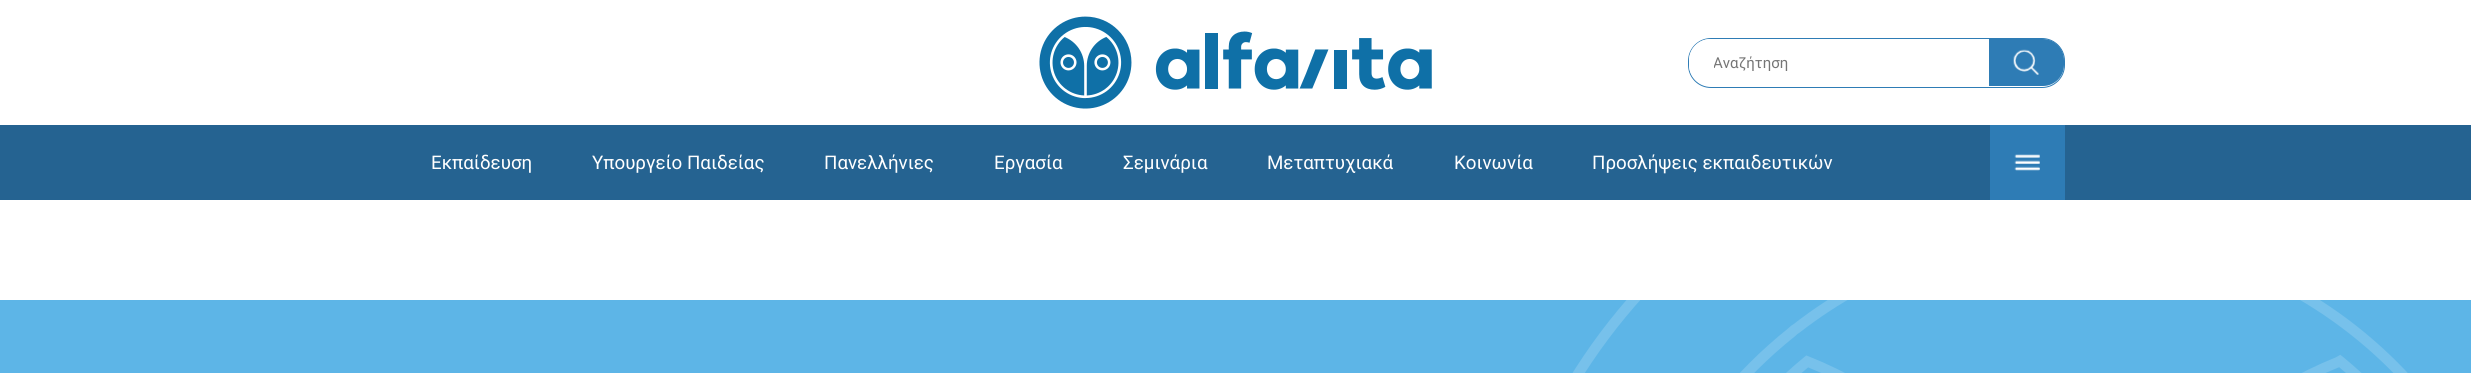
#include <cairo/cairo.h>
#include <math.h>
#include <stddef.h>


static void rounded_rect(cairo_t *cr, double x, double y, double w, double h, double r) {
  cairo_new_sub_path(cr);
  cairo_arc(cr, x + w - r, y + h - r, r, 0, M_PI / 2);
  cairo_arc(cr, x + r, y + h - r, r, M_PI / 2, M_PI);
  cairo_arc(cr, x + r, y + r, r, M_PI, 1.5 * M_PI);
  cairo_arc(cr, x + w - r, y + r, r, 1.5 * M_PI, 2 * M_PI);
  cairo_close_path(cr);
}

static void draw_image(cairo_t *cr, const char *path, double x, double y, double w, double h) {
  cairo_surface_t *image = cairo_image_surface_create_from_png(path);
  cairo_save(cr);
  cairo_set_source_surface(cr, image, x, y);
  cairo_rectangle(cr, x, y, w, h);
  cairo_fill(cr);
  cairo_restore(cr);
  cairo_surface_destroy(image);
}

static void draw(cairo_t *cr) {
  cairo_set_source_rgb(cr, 1, 1, 1);
  cairo_paint(cr);
  draw_image(cr, "images/1.png", 1039, 16, 393, 93);
  rounded_rect(cr, 1688.5, 38.5, 376, 49, 22.5);
  cairo_set_source_rgb(cr, 46 / 255.0, 124 / 255.0, 181 / 255.0);
  cairo_set_line_width(cr, 1);
  cairo_stroke(cr);
  cairo_set_source_rgb(cr, 1, 1, 1);
  cairo_new_path(cr);
  cairo_move_to(cr, 1710, 39);
  cairo_line_to(cr, 1989, 39);
  cairo_line_to(cr, 1989, 86);
  cairo_line_to(cr, 1710, 86);
  cairo_curve_to(cr, 1698.5, 86, 1689, 76.5, 1689, 65);
  cairo_line_to(cr, 1689, 60);
  cairo_curve_to(cr, 1689, 48.5, 1698.5, 39, 1710, 39);
  cairo_close_path(cr);
  cairo_fill(cr);
  cairo_set_source_rgb(cr, 46 / 255.0, 124 / 255.0, 181 / 255.0);
  cairo_new_path(cr);
  cairo_move_to(cr, 1989, 39);
  cairo_line_to(cr, 2043, 39);
  cairo_curve_to(cr, 2054.5, 39, 2064, 48.5, 2064, 60);
  cairo_line_to(cr, 2064, 65);
  cairo_curve_to(cr, 2064, 76.5, 2054.5, 86, 2043, 86);
  cairo_line_to(cr, 1989, 86);
  cairo_close_path(cr);
  cairo_fill(cr);
  draw_image(cr, "images/2.png", 2013, 49, 26, 26);
  cairo_set_source_rgb(cr, 37 / 255.0, 99 / 255.0, 145 / 255.0);
  cairo_rectangle(cr, 0, 125, 2471, 75);
  cairo_fill(cr);
  cairo_set_source_rgb(cr, 46 / 255.0, 124 / 255.0, 181 / 255.0);
  cairo_rectangle(cr, 1990, 125, 75, 75);
  cairo_fill(cr);
  draw_image(cr, "images/3.png", 2014, 154, 26, 17);
  cairo_set_source_rgb(cr, 93 / 255.0, 181 / 255.0, 231 / 255.0);
  cairo_rectangle(cr, 0, 300, 2471, 73);
  cairo_fill(cr);
  draw_image(cr, "images/4.png", 1572, 300, 836, 73);
  cairo_save(cr);
  cairo_rectangle(cr, 1714, 54, 250, 17);
  cairo_clip(cr);
  cairo_select_font_face(cr, "Roboto", CAIRO_FONT_SLANT_NORMAL, CAIRO_FONT_WEIGHT_NORMAL);
  cairo_set_font_size(cr, 15);
  cairo_set_source_rgb(cr, 117 / 255.0, 117 / 255.0, 117 / 255.0);
  cairo_move_to(cr, 1713, 68);
  cairo_show_text(cr, "Αναζήτηση");
  cairo_restore(cr);
  cairo_select_font_face(cr, "Roboto", CAIRO_FONT_SLANT_NORMAL, CAIRO_FONT_WEIGHT_NORMAL);
  cairo_set_font_size(cr, 18.75);
  cairo_set_source_rgb(cr, 1, 1, 1);
  cairo_move_to(cr, 431, 169);
  cairo_show_text(cr, "Εκπαίδευση");
  cairo_move_to(cr, 592, 169);
  cairo_show_text(cr, "Υπουργείο Παιδείας");
  cairo_move_to(cr, 824, 169);
  cairo_show_text(cr, "Πανελλήνιες");
  cairo_move_to(cr, 994, 169);
  cairo_show_text(cr, "Εργασία");
  cairo_move_to(cr, 1123, 169);
  cairo_show_text(cr, "Σεμινάρια");
  cairo_move_to(cr, 1267, 169);
  cairo_show_text(cr, "Μεταπτυχιακά");
  cairo_move_to(cr, 1454, 169);
  cairo_show_text(cr, "Κοινωνία");
  cairo_move_to(cr, 1592, 169);
  cairo_show_text(cr, "Προσλήψεις εκπαιδευτικών");
}

int main(void) {
  cairo_surface_t *surface = cairo_image_surface_create(CAIRO_FORMAT_RGB24, 2471, 373);
  cairo_t *cr = cairo_create(surface);
  cairo_font_options_t *options = cairo_font_options_create();
  cairo_font_options_set_hint_metrics(options, CAIRO_HINT_METRICS_OFF);
  cairo_font_options_set_hint_style(options, CAIRO_HINT_STYLE_NONE);
  cairo_set_font_options(cr, options);
  cairo_set_miter_limit(cr, 4);
  draw(cr);
  cairo_surface_write_to_png(surface, "out.png");
  cairo_font_options_destroy(options);
  cairo_destroy(cr);
  cairo_surface_destroy(surface);
  return 0;
}
